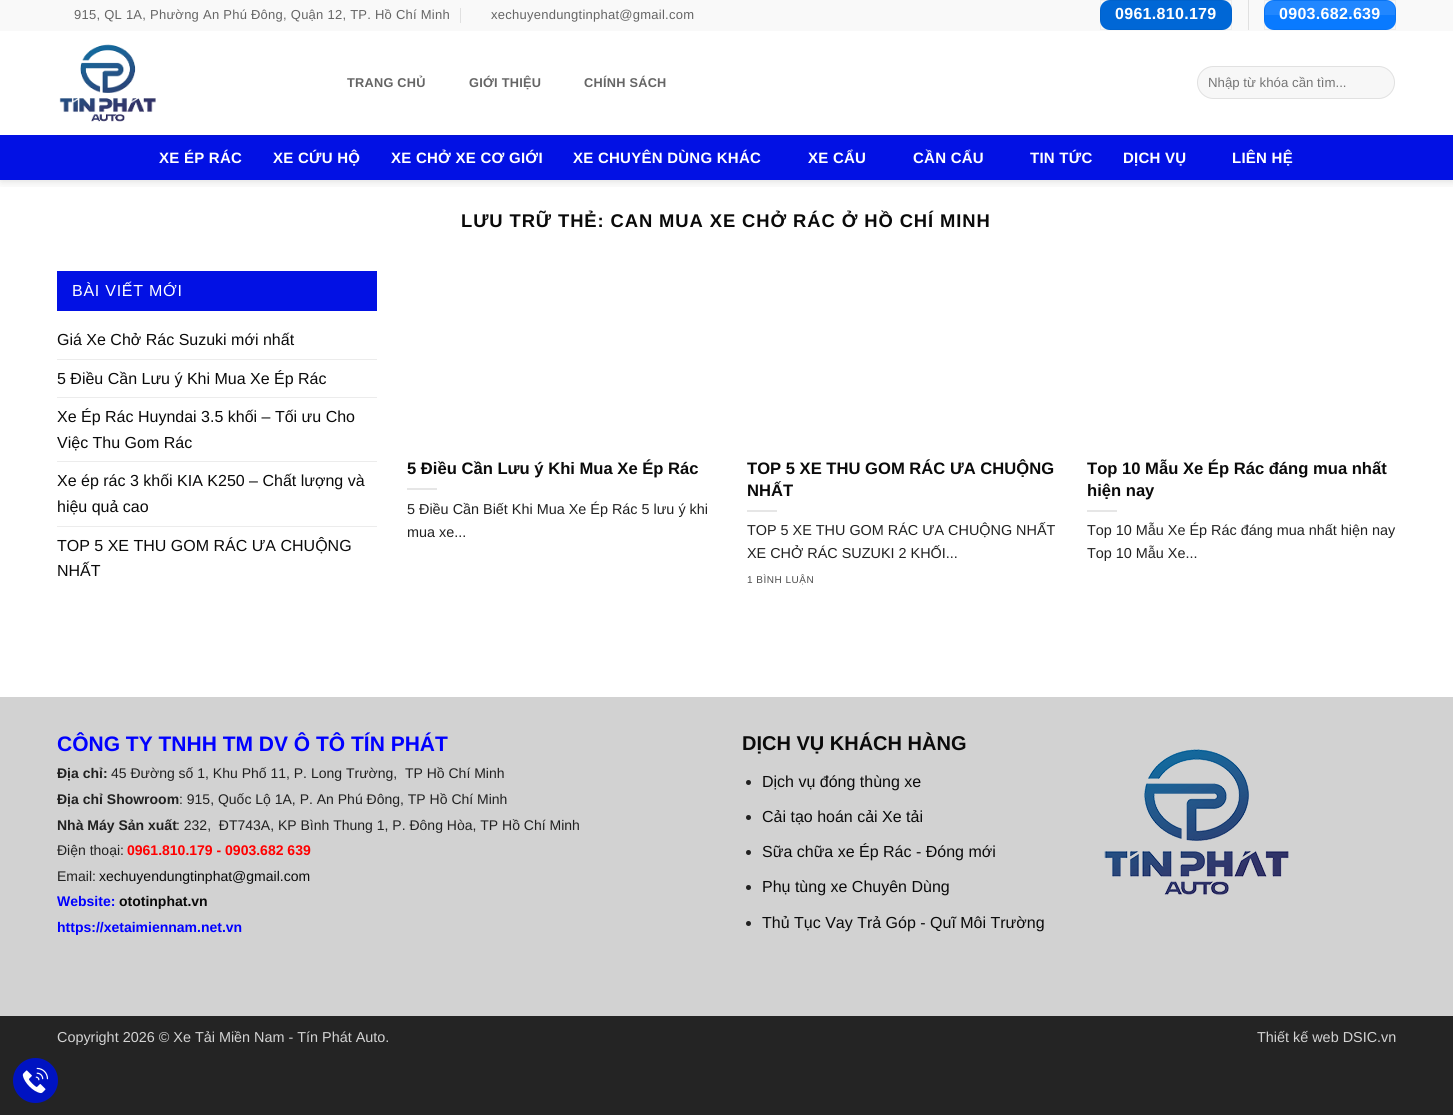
#include <cairo/cairo.h>
#include <math.h>
#include <stddef.h>


static void draw_spaced(cairo_t *cr, double x, double y, const char *s, double letter, double word) {
  cairo_move_to(cr, x, y);
  while (*s) {
    char ch[5] = {0};
    int n = 0;
    do ch[n++] = *s++; while ((*s & 0xC0) == 0x80);
    cairo_show_text(cr, ch);
    cairo_rel_move_to(cr, letter + word * (*ch == ' '), 0);
  }
}

static void rounded_rect(cairo_t *cr, double x, double y, double w, double h, double r) {
  cairo_new_sub_path(cr);
  cairo_arc(cr, x + w - r, y + h - r, r, 0, M_PI / 2);
  cairo_arc(cr, x + r, y + h - r, r, M_PI / 2, M_PI);
  cairo_arc(cr, x + r, y + r, r, M_PI, 1.5 * M_PI);
  cairo_arc(cr, x + w - r, y + r, r, 1.5 * M_PI, 2 * M_PI);
  cairo_close_path(cr);
}

static void draw_shadow(cairo_t *cr, double x, double y, double w, double h, double r, double blur, double alpha) {
  cairo_push_group_with_content(cr, CAIRO_CONTENT_ALPHA);
  cairo_set_operator(cr, CAIRO_OPERATOR_SOURCE);
  for (int i = 15; i >= -15 && fmin(w, h) + blur * i / 3 > 0; i -= 2) {
    double e = blur * i / 6;
    cairo_set_source_rgba(cr, 0, 0, 0, alpha * erfc((i - 1) / 8.5) / 2);
    rounded_rect(cr, x - e, y - e, w + 2 * e, h + 2 * e, fmax(0, fmin(r + e + blur * .6, fmin(w, h) / 2 + e)));
    cairo_fill(cr);
  }
  cairo_pattern_t *soft = cairo_pop_group(cr);
  cairo_mask(cr, soft);
  cairo_pattern_destroy(soft);
}

static void draw_image(cairo_t *cr, const char *path, double x, double y, double w, double h) {
  cairo_surface_t *image = cairo_image_surface_create_from_png(path);
  cairo_save(cr);
  cairo_set_source_surface(cr, image, x, y);
  cairo_rectangle(cr, x, y, w, h);
  cairo_fill(cr);
  cairo_restore(cr);
  cairo_surface_destroy(image);
}

static void draw(cairo_t *cr) {
  cairo_set_source_rgb(cr, 36 / 255.0, 36 / 255.0, 36 / 255.0);
  cairo_paint(cr);
  cairo_set_source_rgb(cr, 1, 1, 1);
  cairo_rectangle(cr, 0, 31, 1453, 666);
  cairo_fill(cr);
  cairo_save(cr);
  cairo_rectangle(cr, 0, 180, 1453, 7);
  cairo_clip(cr);
  cairo_set_source_rgb(cr, 0, 0, 0);
  draw_shadow(cr, 1, 1, 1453, 180, 0, 5, 0.15);
  cairo_restore(cr);
  cairo_set_source_rgb(cr, 249 / 255.0, 249 / 255.0, 249 / 255.0);
  cairo_rectangle(cr, 0, 0, 1453, 31);
  cairo_fill(cr);
  cairo_set_source_rgb(cr, 224 / 255.0, 224 / 255.0, 224 / 255.0);
  cairo_rectangle(cr, 460, 8, 1, 15);
  cairo_fill(cr);
  cairo_set_source_rgb(cr, 0, 103 / 255.0, 214 / 255.0);
  rounded_rect(cr, 1100, 0, 132, 30, 10);
  cairo_fill(cr);
  cairo_rectangle(cr, 1100.5, 0.5, 131, 29);
  cairo_set_source_rgba(cr, 0, 0, 0, 0.05);
  cairo_set_line_width(cr, 1);
  cairo_stroke(cr);
  cairo_set_source_rgb(cr, 224 / 255.0, 224 / 255.0, 224 / 255.0);
  cairo_rectangle(cr, 1248, 0, 1, 30);
  cairo_fill(cr);
  cairo_set_source_rgb(cr, 9 / 255.0, 122 / 255.0, 1);
  rounded_rect(cr, 1264, 0, 132, 30, 10);
  cairo_fill(cr);
  cairo_rectangle(cr, 1264.5, 0.5, 131, 29);
  cairo_set_source_rgba(cr, 0, 0, 0, 0.05);
  cairo_stroke(cr);
  cairo_set_source_rgba(cr, 1, 1, 1, 0.1);
  cairo_new_path(cr);
  cairo_move_to(cr, 1274, 1);
  cairo_line_to(cr, 1386, 1);
  cairo_curve_to(cr, 1391, 1, 1395, 5, 1395, 10);
  cairo_line_to(cr, 1395, 15);
  cairo_line_to(cr, 1265, 15);
  cairo_line_to(cr, 1265, 10);
  cairo_curve_to(cr, 1265, 5, 1269, 1, 1274, 1);
  cairo_close_path(cr);
  cairo_fill(cr);
  draw_image(cr, "images/1.png", 59, 44, 97, 78);
  cairo_set_source_rgb(cr, 247 / 255.0, 247 / 255.0, 247 / 255.0);
  rounded_rect(cr, 1197, 66, 198, 33, 16.5);
  cairo_fill(cr);
  rounded_rect(cr, 1197.5, 66.5, 197, 32, 16);
  cairo_set_source_rgba(cr, 0, 0, 0, 0.09);
  cairo_stroke(cr);
  cairo_set_source_rgb(cr, 2 / 255.0, 17 / 255.0, 228 / 255.0);
  cairo_rectangle(cr, 0, 135, 1453, 45);
  cairo_fill(cr);
  cairo_set_source_rgb(cr, 5 / 255.0, 19 / 255.0, 209 / 255.0);
  cairo_rectangle(cr, 57, 135, 1340, 1);
  cairo_fill(cr);
  cairo_set_source_rgb(cr, 2 / 255.0, 17 / 255.0, 228 / 255.0);
  cairo_rectangle(cr, 57, 271, 320, 40);
  cairo_fill(cr);
  cairo_set_source_rgb(cr, 236 / 255.0, 236 / 255.0, 236 / 255.0);
  cairo_rectangle(cr, 57, 359, 320, 1);
  cairo_fill(cr);
  cairo_rectangle(cr, 57, 397, 320, 1);
  cairo_fill(cr);
  cairo_rectangle(cr, 57, 461, 320, 1);
  cairo_fill(cr);
  cairo_rectangle(cr, 57, 526, 320, 1);
  cairo_fill(cr);
  cairo_set_source_rgb(cr, 230 / 255.0, 230 / 255.0, 230 / 255.0);
  cairo_rectangle(cr, 407, 488, 30, 2);
  cairo_fill(cr);
  cairo_rectangle(cr, 747, 510, 30, 2);
  cairo_fill(cr);
  cairo_rectangle(cr, 1087, 510, 30, 2);
  cairo_fill(cr);
  cairo_set_source_rgb(cr, 210 / 255.0, 210 / 255.0, 210 / 255.0);
  cairo_rectangle(cr, 0, 697, 1453, 319);
  cairo_fill(cr);
  cairo_set_source_rgb(cr, 33 / 255.0, 33 / 255.0, 33 / 255.0);
  cairo_arc(cr, 748.5, 782.5, 2.5, 0, 2 * M_PI);
  cairo_fill(cr);
  cairo_arc(cr, 748.5, 817.5, 2.5, 0, 2 * M_PI);
  cairo_fill(cr);
  cairo_arc(cr, 748.5, 852.5, 2.5, 0, 2 * M_PI);
  cairo_fill(cr);
  cairo_arc(cr, 748.5, 887.5, 2.5, 0, 2 * M_PI);
  cairo_fill(cr);
  cairo_arc(cr, 748.5, 923.5, 2.5, 0, 2 * M_PI);
  cairo_fill(cr);
  draw_image(cr, "images/2.png", 1104, 749, 185, 146);
  cairo_set_source_rgb(cr, 0, 19 / 255.0, 194 / 255.0);
  cairo_arc(cr, 35.5, 1080.5, 22.5, 0, 2 * M_PI);
  cairo_fill(cr);
  draw_image(cr, "images/3.png", 22, 1067, 27, 27);
  cairo_select_font_face(cr, "Liberation Sans", CAIRO_FONT_SLANT_NORMAL, CAIRO_FONT_WEIGHT_NORMAL);
  cairo_set_font_size(cr, 13);
  cairo_set_source_rgb(cr, 101 / 255.0, 101 / 255.0, 101 / 255.0);
  draw_spaced(cr, 74, 19, "915, QL 1A, Phường An Phú Đông, Quận 12, TP. Hồ Chí Minh", 0.25, 0);
  draw_spaced(cr, 491, 19, "xechuyendungtinphat@gmail.com", 0.25, 0);
  cairo_select_font_face(cr, "Liberation Sans", CAIRO_FONT_SLANT_NORMAL, CAIRO_FONT_WEIGHT_BOLD);
  cairo_set_font_size(cr, 16);
  cairo_set_source_rgb(cr, 1, 1, 1);
  draw_spaced(cr, 1115, 19, "0961.810.179", 0.3, 0);
  draw_spaced(cr, 1279, 19, "0903.682.639", 0.3, 0);
  cairo_set_font_size(cr, 12.75);
  cairo_set_source_rgb(cr, 101 / 255.0, 101 / 255.0, 101 / 255.0);
  draw_spaced(cr, 347, 87, "TRANG CHỦ", 0.25, 0);
  draw_spaced(cr, 469, 87, "GIỚI THIỆU", 0.25, 0);
  draw_spaced(cr, 584, 87, "CHÍNH SÁCH", 0.25, 0);
  cairo_select_font_face(cr, "Liberation Sans", CAIRO_FONT_SLANT_NORMAL, CAIRO_FONT_WEIGHT_NORMAL);
  cairo_set_font_size(cr, 13.25);
  cairo_set_source_rgb(cr, 117 / 255.0, 117 / 255.0, 117 / 255.0);
  cairo_move_to(cr, 1208, 87);
  cairo_show_text(cr, "Nhập từ khóa cần tìm...");
  cairo_select_font_face(cr, "Liberation Sans", CAIRO_FONT_SLANT_NORMAL, CAIRO_FONT_WEIGHT_BOLD);
  cairo_set_font_size(cr, 15);
  cairo_set_source_rgb(cr, 1, 1, 1);
  draw_spaced(cr, 159, 163, "XE ÉP RÁC", 0.25, 0);
  draw_spaced(cr, 273, 163, "XE CỨU HỘ", 0.25, 0);
  draw_spaced(cr, 391, 163, "XE CHỞ XE CƠ GIỚI", 0.25, 0);
  draw_spaced(cr, 573, 163, "XE CHUYÊN DÙNG KHÁC", 0.25, 0);
  draw_spaced(cr, 808, 163, "XE CẨU", 0.25, 0);
  draw_spaced(cr, 913, 163, "CẦN CẨU", 0.25, 0);
  draw_spaced(cr, 1030, 163, "TIN TỨC", 0.25, 0);
  draw_spaced(cr, 1123, 163, "DỊCH VỤ", 0.25, 0);
  draw_spaced(cr, 1232, 163, "LIÊN HỆ", 0.25, 0);
  cairo_set_font_size(cr, 18.4);
  cairo_set_source_rgb(cr, 10 / 255.0, 10 / 255.0, 10 / 255.0);
  draw_spaced(cr, 461, 227, "LƯU TRỮ THẺ: CAN MUA XE CHỞ RÁC Ở HỒ CHÍ MINH", 0.9, 0);
  cairo_select_font_face(cr, "Liberation Sans", CAIRO_FONT_SLANT_NORMAL, CAIRO_FONT_WEIGHT_NORMAL);
  cairo_set_font_size(cr, 16);
  cairo_set_source_rgb(cr, 1, 1, 1);
  draw_spaced(cr, 72, 296, "BÀI VIẾT MỚI", 0.75, 0);
  cairo_set_source_rgb(cr, 10 / 255.0, 10 / 255.0, 10 / 255.0);
  cairo_move_to(cr, 57, 345);
  cairo_show_text(cr, "Giá Xe Chở Rác Suzuki mới nhất");
  cairo_move_to(cr, 57, 384);
  cairo_show_text(cr, "5 Điều Cần Lưu ý Khi Mua Xe Ép Rác");
  cairo_move_to(cr, 57, 422);
  cairo_show_text(cr, "Xe Ép Rác Huyndai 3.5 khối – Tối ưu Cho");
  cairo_move_to(cr, 57, 448);
  cairo_show_text(cr, "Việc Thu Gom Rác");
  cairo_move_to(cr, 57, 486);
  cairo_show_text(cr, "Xe ép rác 3 khối KIA K250 – Chất lượng và");
  cairo_move_to(cr, 57, 512);
  cairo_show_text(cr, "hiệu quả cao");
  cairo_move_to(cr, 57, 551);
  cairo_show_text(cr, "TOP 5 XE THU GOM RÁC ƯA CHUỘNG");
  cairo_move_to(cr, 57, 576);
  cairo_show_text(cr, "NHẤT");
  cairo_select_font_face(cr, "Liberation Sans", CAIRO_FONT_SLANT_NORMAL, CAIRO_FONT_WEIGHT_BOLD);
  cairo_set_font_size(cr, 16.6);
  cairo_move_to(cr, 407, 474);
  cairo_show_text(cr, "5 Điều Cần Lưu ý Khi Mua Xe Ép Rác");
  cairo_select_font_face(cr, "Liberation Sans", CAIRO_FONT_SLANT_NORMAL, CAIRO_FONT_WEIGHT_NORMAL);
  cairo_set_font_size(cr, 14.4);
  cairo_set_source_rgb(cr, 33 / 255.0, 33 / 255.0, 33 / 255.0);
  cairo_move_to(cr, 407, 514);
  cairo_show_text(cr, "5 Điều Cần Biết Khi Mua Xe Ép Rác 5 lưu ý khi");
  cairo_move_to(cr, 407, 537);
  cairo_show_text(cr, "mua xe...");
  cairo_select_font_face(cr, "Liberation Sans", CAIRO_FONT_SLANT_NORMAL, CAIRO_FONT_WEIGHT_BOLD);
  cairo_set_font_size(cr, 16.6);
  cairo_set_source_rgb(cr, 10 / 255.0, 10 / 255.0, 10 / 255.0);
  cairo_move_to(cr, 747, 474);
  cairo_show_text(cr, "TOP 5 XE THU GOM RÁC ƯA CHUỘNG");
  cairo_move_to(cr, 747, 496);
  cairo_show_text(cr, "NHẤT");
  cairo_select_font_face(cr, "Liberation Sans", CAIRO_FONT_SLANT_NORMAL, CAIRO_FONT_WEIGHT_NORMAL);
  cairo_set_font_size(cr, 14.4);
  cairo_set_source_rgb(cr, 33 / 255.0, 33 / 255.0, 33 / 255.0);
  cairo_move_to(cr, 747, 535);
  cairo_show_text(cr, "TOP 5 XE THU GOM RÁC ƯA CHUỘNG NHẤT");
  cairo_move_to(cr, 747, 558);
  cairo_show_text(cr, "XE CHỞ RÁC SUZUKI 2 KHỐI...");
  cairo_set_font_size(cr, 10);
  cairo_set_source_rgb(cr, 77 / 255.0, 77 / 255.0, 77 / 255.0);
  draw_spaced(cr, 747, 583, "1 BÌNH LUẬN", 0.5, 0);
  cairo_select_font_face(cr, "Liberation Sans", CAIRO_FONT_SLANT_NORMAL, CAIRO_FONT_WEIGHT_BOLD);
  cairo_set_font_size(cr, 16.6);
  cairo_set_source_rgb(cr, 10 / 255.0, 10 / 255.0, 10 / 255.0);
  cairo_move_to(cr, 1087, 474);
  cairo_show_text(cr, "Top 10 Mẫu Xe Ép Rác đáng mua nhất");
  cairo_move_to(cr, 1087, 496);
  cairo_show_text(cr, "hiện nay");
  cairo_select_font_face(cr, "Liberation Sans", CAIRO_FONT_SLANT_NORMAL, CAIRO_FONT_WEIGHT_NORMAL);
  cairo_set_font_size(cr, 14.4);
  cairo_set_source_rgb(cr, 33 / 255.0, 33 / 255.0, 33 / 255.0);
  cairo_move_to(cr, 1087, 535);
  cairo_show_text(cr, "Top 10 Mẫu Xe Ép Rác đáng mua nhất hiện nay");
  cairo_move_to(cr, 1087, 558);
  cairo_show_text(cr, "Top 10 Mẫu Xe...");
  cairo_select_font_face(cr, "Liberation Sans", CAIRO_FONT_SLANT_NORMAL, CAIRO_FONT_WEIGHT_BOLD);
  cairo_set_font_size(cr, 21);
  cairo_set_source_rgb(cr, 0, 0, 1);
  cairo_move_to(cr, 57, 751);
  cairo_show_text(cr, "CÔNG TY TNHH TM DV Ô TÔ TÍN PHÁT");
  cairo_set_font_size(cr, 14);
  cairo_set_source_rgb(cr, 33 / 255.0, 33 / 255.0, 33 / 255.0);
  cairo_move_to(cr, 57, 778);
  cairo_show_text(cr, "Địa chỉ:");
  cairo_select_font_face(cr, "Liberation Sans", CAIRO_FONT_SLANT_NORMAL, CAIRO_FONT_WEIGHT_NORMAL);
  cairo_move_to(cr, 111, 778);
  cairo_show_text(cr, "45 Đường số 1, Khu Phố 11, P. Long Trường,  TP Hồ Chí Minh");
  cairo_select_font_face(cr, "Liberation Sans", CAIRO_FONT_SLANT_NORMAL, CAIRO_FONT_WEIGHT_BOLD);
  cairo_move_to(cr, 57, 804);
  cairo_show_text(cr, "Địa chỉ Showroom");
  cairo_select_font_face(cr, "Liberation Sans", CAIRO_FONT_SLANT_NORMAL, CAIRO_FONT_WEIGHT_NORMAL);
  cairo_move_to(cr, 179, 804);
  cairo_show_text(cr, ": 915, Quốc Lộ 1A, P. An Phú Đông, TP Hồ Chí Minh");
  cairo_select_font_face(cr, "Liberation Sans", CAIRO_FONT_SLANT_NORMAL, CAIRO_FONT_WEIGHT_BOLD);
  cairo_move_to(cr, 57, 830);
  cairo_show_text(cr, "Nhà Máy Sản xuất");
  cairo_select_font_face(cr, "Liberation Sans", CAIRO_FONT_SLANT_NORMAL, CAIRO_FONT_WEIGHT_NORMAL);
  cairo_move_to(cr, 176, 830);
  cairo_show_text(cr, ": 232,  ĐT743A, KP Bình Thung 1, P. Đông Hòa, TP Hồ Chí Minh");
  cairo_move_to(cr, 57, 855);
  cairo_show_text(cr, "Điện thoại:");
  cairo_select_font_face(cr, "Liberation Sans", CAIRO_FONT_SLANT_NORMAL, CAIRO_FONT_WEIGHT_BOLD);
  cairo_set_source_rgb(cr, 1, 0, 0);
  cairo_move_to(cr, 127, 855);
  cairo_show_text(cr, "0961.810.179 - 0903.682 639");
  cairo_select_font_face(cr, "Liberation Sans", CAIRO_FONT_SLANT_NORMAL, CAIRO_FONT_WEIGHT_NORMAL);
  cairo_set_source_rgb(cr, 33 / 255.0, 33 / 255.0, 33 / 255.0);
  cairo_move_to(cr, 57, 881);
  cairo_show_text(cr, "Email:");
  cairo_set_source_rgb(cr, 10 / 255.0, 10 / 255.0, 10 / 255.0);
  cairo_move_to(cr, 99, 881);
  cairo_show_text(cr, "xechuyendungtinphat@gmail.com");
  cairo_select_font_face(cr, "Liberation Sans", CAIRO_FONT_SLANT_NORMAL, CAIRO_FONT_WEIGHT_BOLD);
  cairo_set_source_rgb(cr, 0, 0, 1);
  cairo_move_to(cr, 57, 906);
  cairo_show_text(cr, "Website:");
  cairo_set_source_rgb(cr, 10 / 255.0, 10 / 255.0, 10 / 255.0);
  cairo_move_to(cr, 119, 906);
  cairo_show_text(cr, "ototinphat.vn");
  cairo_set_source_rgb(cr, 0, 0, 1);
  cairo_move_to(cr, 57, 932);
  cairo_show_text(cr, "https://xetaimiennam.net.vn");
  cairo_set_font_size(cr, 20);
  cairo_set_source_rgb(cr, 10 / 255.0, 10 / 255.0, 10 / 255.0);
  cairo_move_to(cr, 742, 750);
  cairo_show_text(cr, "DỊCH VỤ KHÁCH HÀNG");
  cairo_select_font_face(cr, "Liberation Sans", CAIRO_FONT_SLANT_NORMAL, CAIRO_FONT_WEIGHT_NORMAL);
  cairo_set_font_size(cr, 16);
  cairo_move_to(cr, 762, 787);
  cairo_show_text(cr, "Dịch vụ đóng thùng xe");
  cairo_move_to(cr, 762, 822);
  cairo_show_text(cr, "Cải tạo hoán cải Xe tải");
  cairo_move_to(cr, 762, 857);
  cairo_show_text(cr, "Sữa chữa xe Ép Rác - Đóng mới");
  cairo_move_to(cr, 762, 892);
  cairo_show_text(cr, "Phụ tùng xe Chuyên Dùng");
  cairo_move_to(cr, 762, 928);
  cairo_show_text(cr, "Thủ Tục Vay Trả Góp - Quĩ Môi Trường");
  cairo_set_font_size(cr, 14.4);
  cairo_set_source_rgb(cr, 211 / 255.0, 211 / 255.0, 211 / 255.0);
  cairo_move_to(cr, 57, 1042);
  cairo_show_text(cr, "Copyright 2026 © Xe Tải Miền Nam - Tín Phát Auto.");
  cairo_move_to(cr, 1257, 1042);
  cairo_show_text(cr, "Thiết kế web DSIC.vn");
}

int main(void) {
  cairo_surface_t *surface = cairo_image_surface_create(CAIRO_FORMAT_RGB24, 1453, 1115);
  cairo_t *cr = cairo_create(surface);
  cairo_font_options_t *options = cairo_font_options_create();
  cairo_font_options_set_hint_metrics(options, CAIRO_HINT_METRICS_OFF);
  cairo_font_options_set_hint_style(options, CAIRO_HINT_STYLE_NONE);
  cairo_set_font_options(cr, options);
  cairo_set_miter_limit(cr, 4);
  draw(cr);
  cairo_surface_write_to_png(surface, "out.png");
  cairo_font_options_destroy(options);
  cairo_destroy(cr);
  cairo_surface_destroy(surface);
  return 0;
}
